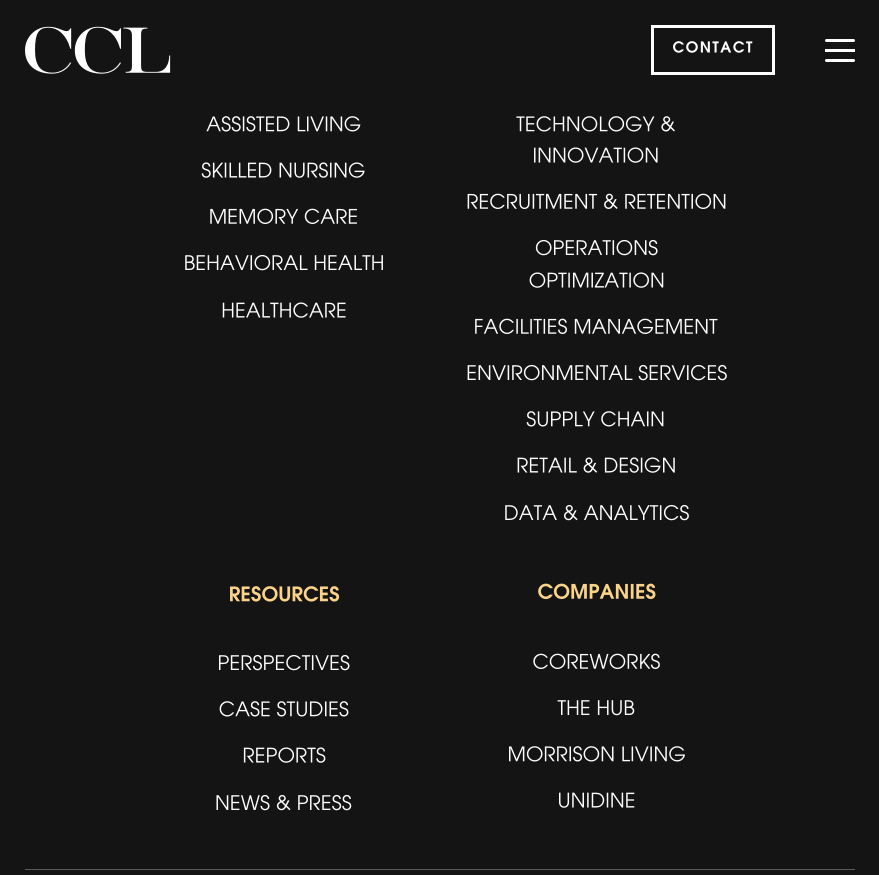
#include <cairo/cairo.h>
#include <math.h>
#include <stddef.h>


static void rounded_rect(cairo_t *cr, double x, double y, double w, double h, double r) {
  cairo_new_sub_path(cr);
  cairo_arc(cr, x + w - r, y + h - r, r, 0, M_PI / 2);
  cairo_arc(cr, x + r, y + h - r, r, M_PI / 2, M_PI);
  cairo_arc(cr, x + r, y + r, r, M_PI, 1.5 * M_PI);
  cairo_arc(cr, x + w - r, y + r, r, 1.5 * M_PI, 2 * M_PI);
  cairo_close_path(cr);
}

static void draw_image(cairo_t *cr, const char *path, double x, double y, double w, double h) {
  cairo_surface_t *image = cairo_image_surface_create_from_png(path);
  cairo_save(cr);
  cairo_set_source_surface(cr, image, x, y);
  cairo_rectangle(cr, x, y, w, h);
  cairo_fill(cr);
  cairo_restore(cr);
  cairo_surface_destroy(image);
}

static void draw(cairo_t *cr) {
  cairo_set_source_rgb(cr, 20 / 255.0, 20 / 255.0, 20 / 255.0);
  cairo_paint(cr);
  draw_image(cr, "images/1.png", 25, 26, 146, 48);
  cairo_rectangle(cr, 652.5, 26.5, 121, 47);
  cairo_set_source_rgb(cr, 1, 1, 1);
  cairo_set_line_width(cr, 3);
  cairo_stroke(cr);
  draw_image(cr, "images/2.png", 673, 41, 80, 12);
  cairo_rectangle(cr, 825, 49, 30, 3);
  cairo_fill(cr);
  rounded_rect(cr, 825, 39, 30, 3, 1.5);
  cairo_fill(cr);
  rounded_rect(cr, 825, 59, 30, 3, 1.5);
  cairo_fill(cr);
  draw_image(cr, "images/3.png", 206, 116, 155, 16);
  draw_image(cr, "images/4.png", 201, 162, 164, 16);
  draw_image(cr, "images/5.png", 210, 208, 147, 16);
  draw_image(cr, "images/6.png", 185, 254, 198, 17);
  draw_image(cr, "images/7.png", 222, 302, 124, 16);
  draw_image(cr, "images/8.png", 516, 116, 159, 16);
  draw_image(cr, "images/9.png", 534, 147, 124, 16);
  draw_image(cr, "images/10.png", 467, 193, 259, 16);
  draw_image(cr, "images/11.png", 535, 239, 123, 17);
  draw_image(cr, "images/12.png", 529, 272, 135, 16);
  draw_image(cr, "images/13.png", 475, 318, 243, 16);
  draw_image(cr, "images/14.png", 467, 364, 260, 17);
  draw_image(cr, "images/15.png", 526, 411, 138, 16);
  draw_image(cr, "images/16.png", 517, 457, 158, 16);
  draw_image(cr, "images/17.png", 505, 504, 184, 17);
  draw_image(cr, "images/18.png", 230, 586, 110, 16);
  draw_image(cr, "images/19.png", 219, 654, 131, 17);
  draw_image(cr, "images/20.png", 219, 701, 130, 16);
  draw_image(cr, "images/21.png", 243, 747, 83, 16);
  draw_image(cr, "images/22.png", 216, 794, 136, 17);
  draw_image(cr, "images/23.png", 538, 583, 118, 17);
  draw_image(cr, "images/24.png", 533, 653, 127, 16);
  draw_image(cr, "images/25.png", 557, 700, 78, 16);
  draw_image(cr, "images/26.png", 509, 746, 176, 16);
  draw_image(cr, "images/27.png", 559, 792, 76, 16);
  cairo_set_source_rgb(cr, 91 / 255.0, 91 / 255.0, 91 / 255.0);
  cairo_rectangle(cr, 25, 869, 830, 1);
  cairo_fill(cr);
}

int main(void) {
  cairo_surface_t *surface = cairo_image_surface_create(CAIRO_FORMAT_RGB24, 879, 875);
  cairo_t *cr = cairo_create(surface);
  cairo_font_options_t *options = cairo_font_options_create();
  cairo_font_options_set_hint_metrics(options, CAIRO_HINT_METRICS_OFF);
  cairo_font_options_set_hint_style(options, CAIRO_HINT_STYLE_NONE);
  cairo_set_font_options(cr, options);
  cairo_set_miter_limit(cr, 4);
  draw(cr);
  cairo_surface_write_to_png(surface, "out.png");
  cairo_font_options_destroy(options);
  cairo_destroy(cr);
  cairo_surface_destroy(surface);
  return 0;
}
